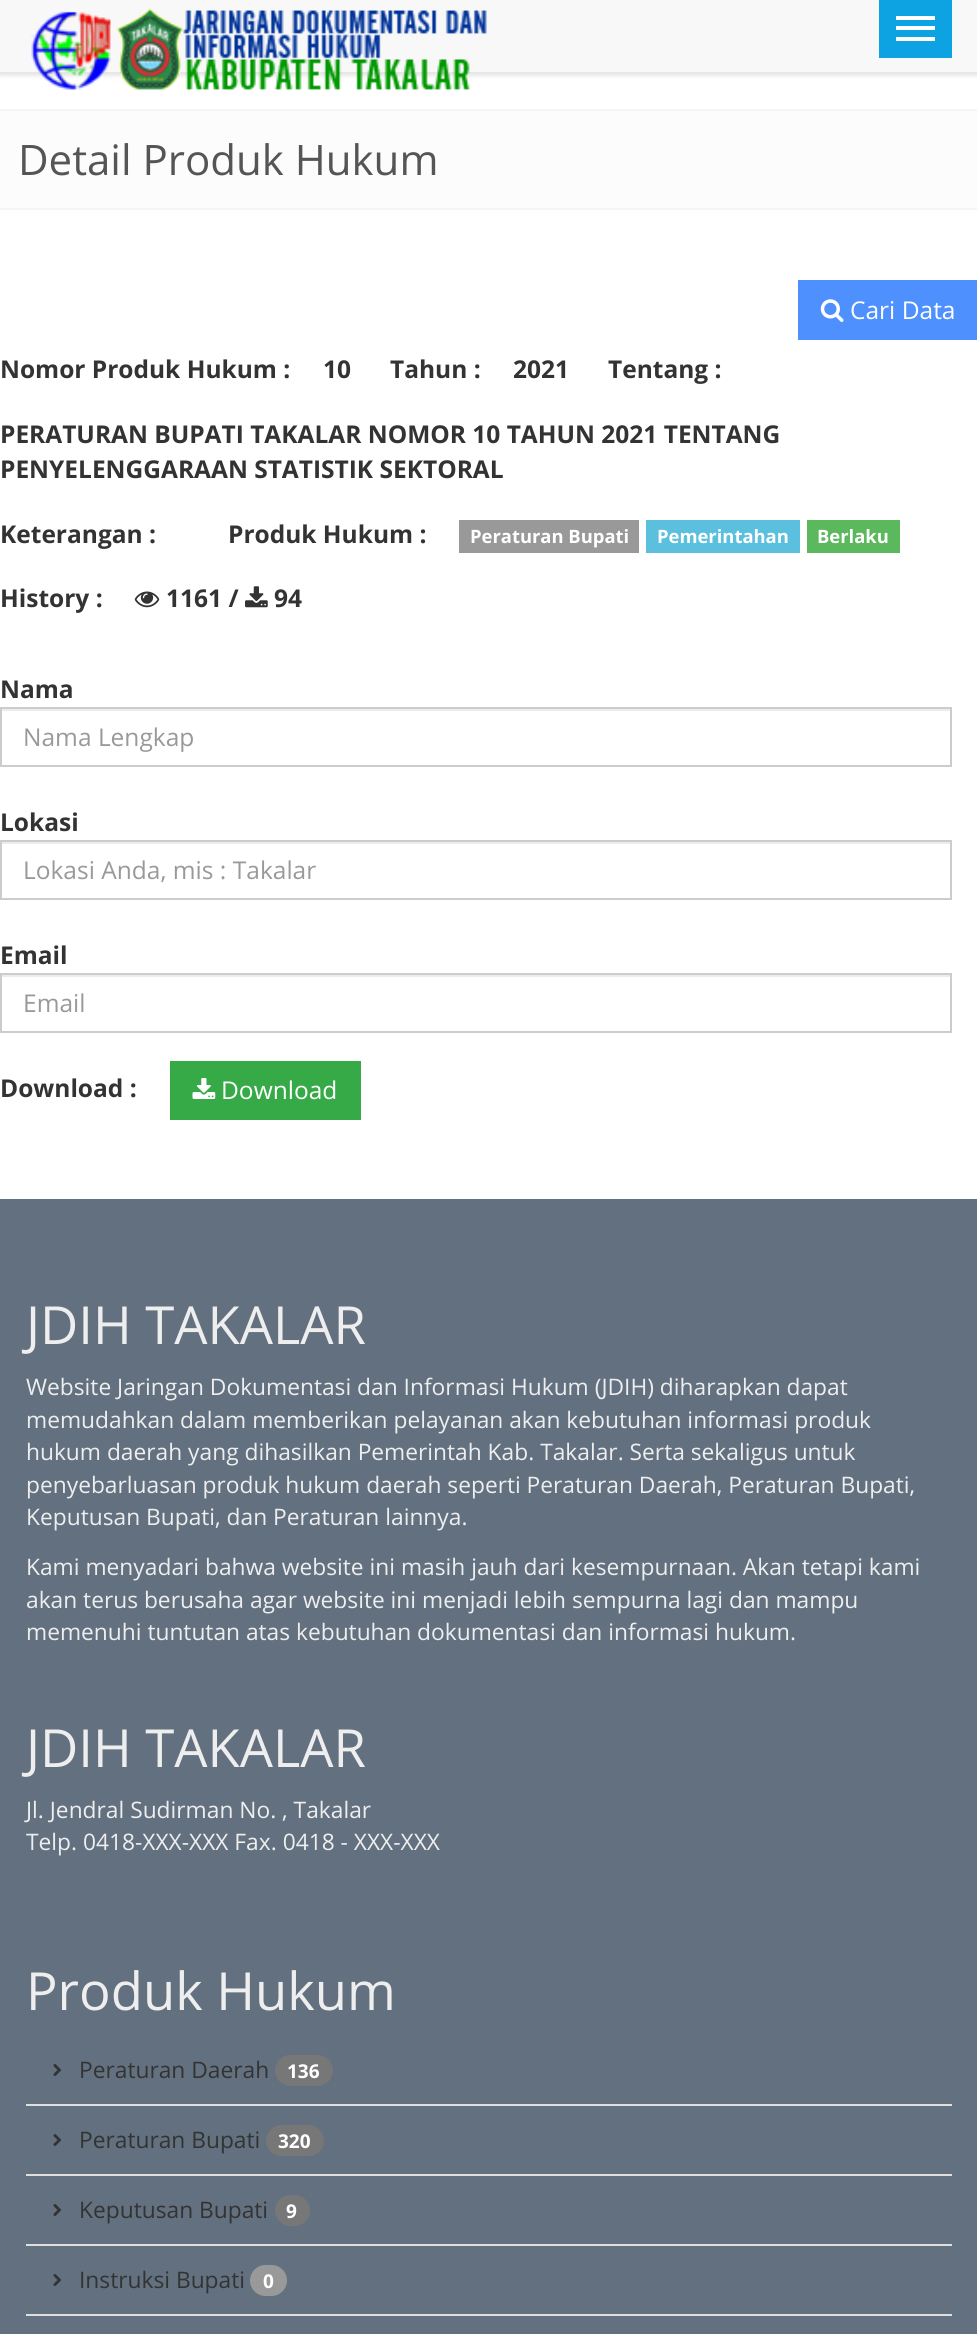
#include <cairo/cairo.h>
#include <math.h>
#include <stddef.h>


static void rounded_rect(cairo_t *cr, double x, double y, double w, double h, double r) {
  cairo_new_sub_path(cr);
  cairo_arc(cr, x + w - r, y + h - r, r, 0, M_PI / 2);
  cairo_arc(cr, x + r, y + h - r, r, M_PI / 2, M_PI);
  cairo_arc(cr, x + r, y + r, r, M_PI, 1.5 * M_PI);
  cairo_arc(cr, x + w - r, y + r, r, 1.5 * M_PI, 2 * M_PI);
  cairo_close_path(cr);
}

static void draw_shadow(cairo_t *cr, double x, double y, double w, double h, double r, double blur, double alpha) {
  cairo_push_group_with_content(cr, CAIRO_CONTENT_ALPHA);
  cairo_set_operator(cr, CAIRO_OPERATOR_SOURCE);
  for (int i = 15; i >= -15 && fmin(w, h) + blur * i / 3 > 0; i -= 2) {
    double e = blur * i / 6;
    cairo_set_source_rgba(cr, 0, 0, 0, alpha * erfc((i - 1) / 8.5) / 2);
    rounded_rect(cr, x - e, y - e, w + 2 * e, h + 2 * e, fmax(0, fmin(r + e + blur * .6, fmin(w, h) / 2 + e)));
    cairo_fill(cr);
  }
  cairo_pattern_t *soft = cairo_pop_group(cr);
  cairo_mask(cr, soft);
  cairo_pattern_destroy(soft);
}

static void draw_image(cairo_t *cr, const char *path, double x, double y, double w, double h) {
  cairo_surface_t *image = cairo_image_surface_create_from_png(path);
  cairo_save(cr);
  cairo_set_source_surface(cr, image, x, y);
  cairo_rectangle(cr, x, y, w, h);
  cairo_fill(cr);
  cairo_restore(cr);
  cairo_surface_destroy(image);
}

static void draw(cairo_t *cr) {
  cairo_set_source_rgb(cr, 1, 1, 1);
  cairo_paint(cr);
  cairo_set_source_rgb(cr, 221 / 255.0, 221 / 255.0, 221 / 255.0);
  draw_shadow(cr, 0, -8, 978, 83, 0, 2.5, 1);
  cairo_set_source_rgb(cr, 248 / 255.0, 248 / 255.0, 248 / 255.0);
  cairo_rectangle(cr, 0, 0, 977, 72);
  cairo_fill(cr);
  cairo_set_source_rgb(cr, 231 / 255.0, 231 / 255.0, 231 / 255.0);
  cairo_rectangle(cr, 0, 72, 977, 2);
  cairo_fill(cr);
  draw_image(cr, "images/1.png", 31, 8, 456, 82);
  cairo_set_source_rgb(cr, 13 / 255.0, 163 / 255.0, 226 / 255.0);
  cairo_rectangle(cr, 879, 0, 73, 58);
  cairo_fill(cr);
  cairo_set_source_rgb(cr, 1, 1, 1);
  cairo_rectangle(cr, 896, 16, 39, 4);
  cairo_fill(cr);
  cairo_rectangle(cr, 896, 26, 39, 4);
  cairo_fill(cr);
  cairo_rectangle(cr, 896, 37, 39, 4);
  cairo_fill(cr);
  cairo_set_source_rgb(cr, 252 / 255.0, 252 / 255.0, 252 / 255.0);
  cairo_rectangle(cr, 0, 111, 977, 97);
  cairo_fill(cr);
  cairo_set_source_rgb(cr, 245 / 255.0, 245 / 255.0, 245 / 255.0);
  cairo_rectangle(cr, 0, 109, 977, 2);
  cairo_fill(cr);
  cairo_rectangle(cr, 0, 208, 977, 2);
  cairo_fill(cr);
  cairo_set_source_rgb(cr, 77 / 255.0, 144 / 255.0, 254 / 255.0);
  cairo_rectangle(cr, 798, 280, 179, 60);
  cairo_fill(cr);
  draw_image(cr, "images/2.png", 820, 299, 24, 23);
  cairo_set_source_rgb(cr, 153 / 255.0, 153 / 255.0, 153 / 255.0);
  cairo_rectangle(cr, 459, 520, 180, 33);
  cairo_fill(cr);
  cairo_set_source_rgb(cr, 91 / 255.0, 192 / 255.0, 222 / 255.0);
  cairo_rectangle(cr, 646, 520, 154, 33);
  cairo_fill(cr);
  cairo_set_source_rgb(cr, 92 / 255.0, 184 / 255.0, 92 / 255.0);
  cairo_rectangle(cr, 807, 520, 93, 33);
  cairo_fill(cr);
  draw_image(cr, "images/3.png", 134, 591, 26, 17);
  draw_image(cr, "images/4.png", 245, 586, 23, 22);
  cairo_set_source_rgb(cr, 236 / 255.0, 236 / 255.0, 236 / 255.0);
  cairo_rectangle(cr, 2, 709, 948, 2);
  cairo_fill(cr);
  cairo_rectangle(cr, 1, 708, 950, 58);
  cairo_set_source_rgb(cr, 204 / 255.0, 204 / 255.0, 204 / 255.0);
  cairo_stroke(cr);
  cairo_set_source_rgb(cr, 236 / 255.0, 236 / 255.0, 236 / 255.0);
  cairo_rectangle(cr, 2, 842, 948, 2);
  cairo_fill(cr);
  cairo_rectangle(cr, 1, 841, 950, 58);
  cairo_set_source_rgb(cr, 204 / 255.0, 204 / 255.0, 204 / 255.0);
  cairo_stroke(cr);
  cairo_set_source_rgb(cr, 236 / 255.0, 236 / 255.0, 236 / 255.0);
  cairo_rectangle(cr, 2, 975, 948, 2);
  cairo_fill(cr);
  cairo_rectangle(cr, 1, 974, 950, 58);
  cairo_set_source_rgb(cr, 204 / 255.0, 204 / 255.0, 204 / 255.0);
  cairo_stroke(cr);
  cairo_set_source_rgb(cr, 53 / 255.0, 170 / 255.0, 71 / 255.0);
  cairo_rectangle(cr, 170, 1061, 191, 59);
  cairo_fill(cr);
  draw_image(cr, "images/5.png", 192, 1078, 24, 21);
  cairo_set_source_rgb(cr, 98 / 255.0, 112 / 255.0, 127 / 255.0);
  cairo_rectangle(cr, 0, 1199, 977, 1135);
  cairo_fill(cr);
  cairo_set_source_rgb(cr, 224 / 255.0, 222 / 255.0, 222 / 255.0);
  cairo_rectangle(cr, 26, 2104, 926, 2);
  cairo_fill(cr);
  draw_image(cr, "images/6.png", 53, 2064, 8, 12);
  cairo_set_source_rgb(cr, 119 / 255.0, 119 / 255.0, 119 / 255.0);
  rounded_rect(cr, 275, 2055, 58, 31, 15.5);
  cairo_fill(cr);
  cairo_set_source_rgb(cr, 224 / 255.0, 222 / 255.0, 222 / 255.0);
  cairo_rectangle(cr, 26, 2174, 926, 2);
  cairo_fill(cr);
  draw_image(cr, "images/6.png", 53, 2134, 8, 12);
  cairo_set_source_rgb(cr, 119 / 255.0, 119 / 255.0, 119 / 255.0);
  rounded_rect(cr, 266, 2125, 58, 31, 15.5);
  cairo_fill(cr);
  cairo_set_source_rgb(cr, 224 / 255.0, 222 / 255.0, 222 / 255.0);
  cairo_rectangle(cr, 26, 2244, 926, 2);
  cairo_fill(cr);
  draw_image(cr, "images/6.png", 53, 2204, 8, 12);
  cairo_set_source_rgb(cr, 119 / 255.0, 119 / 255.0, 119 / 255.0);
  rounded_rect(cr, 275, 2195, 35, 31, 15.5);
  cairo_fill(cr);
  cairo_set_source_rgb(cr, 224 / 255.0, 222 / 255.0, 222 / 255.0);
  cairo_rectangle(cr, 26, 2314, 926, 2);
  cairo_fill(cr);
  draw_image(cr, "images/6.png", 53, 2274, 8, 12);
  cairo_set_source_rgb(cr, 153 / 255.0, 153 / 255.0, 153 / 255.0);
  rounded_rect(cr, 250, 2265, 37, 31, 15.5);
  cairo_fill(cr);
  cairo_select_font_face(cr, "Open Sans", CAIRO_FONT_SLANT_NORMAL, CAIRO_FONT_WEIGHT_NORMAL);
  cairo_set_font_size(cr, 42);
  cairo_set_source_rgb(cr, 85 / 255.0, 85 / 255.0, 85 / 255.0);
  cairo_move_to(cr, 18, 175);
  cairo_show_text(cr, "Detail Produk Hukum");
  cairo_set_font_size(cr, 24.5);
  cairo_set_source_rgb(cr, 1, 1, 1);
  cairo_move_to(cr, 850, 319);
  cairo_show_text(cr, "Cari Data");
  cairo_select_font_face(cr, "Open Sans", CAIRO_FONT_SLANT_NORMAL, CAIRO_FONT_WEIGHT_BOLD);
  cairo_set_source_rgb(cr, 51 / 255.0, 51 / 255.0, 51 / 255.0);
  cairo_move_to(cr, 0, 378);
  cairo_show_text(cr, "Nomor Produk Hukum :");
  cairo_move_to(cr, 323, 378);
  cairo_show_text(cr, "10");
  cairo_move_to(cr, 390, 378);
  cairo_show_text(cr, "Tahun :");
  cairo_move_to(cr, 513, 378);
  cairo_show_text(cr, "2021");
  cairo_move_to(cr, 608, 378);
  cairo_show_text(cr, "Tentang :");
  cairo_move_to(cr, 0, 443);
  cairo_show_text(cr, "PERATURAN BUPATI TAKALAR NOMOR 10 TAHUN 2021 TENTANG");
  cairo_move_to(cr, 0, 478);
  cairo_show_text(cr, "PENYELENGGARAAN STATISTIK SEKTORAL");
  cairo_move_to(cr, 0, 543);
  cairo_show_text(cr, "Keterangan :");
  cairo_move_to(cr, 228, 543);
  cairo_show_text(cr, "Produk Hukum :");
  cairo_set_font_size(cr, 18.4);
  cairo_set_source_rgb(cr, 1, 1, 1);
  cairo_move_to(cr, 470, 543);
  cairo_show_text(cr, "Peraturan Bupati");
  cairo_move_to(cr, 657, 543);
  cairo_show_text(cr, "Pemerintahan");
  cairo_move_to(cr, 817, 543);
  cairo_show_text(cr, "Berlaku");
  cairo_set_font_size(cr, 24.5);
  cairo_set_source_rgb(cr, 51 / 255.0, 51 / 255.0, 51 / 255.0);
  cairo_move_to(cr, 0, 607);
  cairo_show_text(cr, "History :");
  cairo_move_to(cr, 166, 607);
  cairo_show_text(cr, "1161 /");
  cairo_move_to(cr, 274, 607);
  cairo_show_text(cr, "94");
  cairo_move_to(cr, 0, 698);
  cairo_show_text(cr, "Nama");
  cairo_select_font_face(cr, "Open Sans", CAIRO_FONT_SLANT_NORMAL, CAIRO_FONT_WEIGHT_NORMAL);
  cairo_set_source_rgb(cr, 153 / 255.0, 153 / 255.0, 153 / 255.0);
  cairo_move_to(cr, 23, 746);
  cairo_show_text(cr, "Nama Lengkap");
  cairo_select_font_face(cr, "Open Sans", CAIRO_FONT_SLANT_NORMAL, CAIRO_FONT_WEIGHT_BOLD);
  cairo_set_source_rgb(cr, 51 / 255.0, 51 / 255.0, 51 / 255.0);
  cairo_move_to(cr, 0, 831);
  cairo_show_text(cr, "Lokasi");
  cairo_select_font_face(cr, "Open Sans", CAIRO_FONT_SLANT_NORMAL, CAIRO_FONT_WEIGHT_NORMAL);
  cairo_set_source_rgb(cr, 153 / 255.0, 153 / 255.0, 153 / 255.0);
  cairo_move_to(cr, 23, 879);
  cairo_show_text(cr, "Lokasi Anda, mis : Takalar");
  cairo_select_font_face(cr, "Open Sans", CAIRO_FONT_SLANT_NORMAL, CAIRO_FONT_WEIGHT_BOLD);
  cairo_set_source_rgb(cr, 51 / 255.0, 51 / 255.0, 51 / 255.0);
  cairo_move_to(cr, 0, 964);
  cairo_show_text(cr, "Email");
  cairo_select_font_face(cr, "Open Sans", CAIRO_FONT_SLANT_NORMAL, CAIRO_FONT_WEIGHT_NORMAL);
  cairo_set_source_rgb(cr, 153 / 255.0, 153 / 255.0, 153 / 255.0);
  cairo_move_to(cr, 23, 1012);
  cairo_show_text(cr, "Email");
  cairo_select_font_face(cr, "Open Sans", CAIRO_FONT_SLANT_NORMAL, CAIRO_FONT_WEIGHT_BOLD);
  cairo_set_source_rgb(cr, 51 / 255.0, 51 / 255.0, 51 / 255.0);
  cairo_move_to(cr, 0, 1097);
  cairo_show_text(cr, "Download :");
  cairo_select_font_face(cr, "Open Sans", CAIRO_FONT_SLANT_NORMAL, CAIRO_FONT_WEIGHT_NORMAL);
  cairo_set_source_rgb(cr, 1, 1, 1);
  cairo_move_to(cr, 221, 1099);
  cairo_show_text(cr, "Download");
  cairo_set_font_size(cr, 52.5);
  cairo_set_source_rgb(cr, 238 / 255.0, 238 / 255.0, 238 / 255.0);
  cairo_move_to(cr, 26, 1344);
  cairo_show_text(cr, "JDIH TAKALAR");
  cairo_set_font_size(cr, 22.75);
  cairo_move_to(cr, 26, 1395);
  cairo_show_text(cr, "Website Jaringan Dokumentasi dan Informasi Hukum (JDIH) diharapkan dapat");
  cairo_move_to(cr, 26, 1428);
  cairo_show_text(cr, "memudahkan dalam memberikan pelayanan akan kebutuhan informasi produk");
  cairo_move_to(cr, 26, 1460);
  cairo_show_text(cr, "hukum daerah yang dihasilkan Pemerintah Kab. Takalar. Serta sekaligus untuk");
  cairo_move_to(cr, 26, 1493);
  cairo_show_text(cr, "penyebarluasan produk hukum daerah seperti Peraturan Daerah, Peraturan Bupati,");
  cairo_move_to(cr, 26, 1525);
  cairo_show_text(cr, "Keputusan Bupati, dan Peraturan lainnya.");
  cairo_move_to(cr, 26, 1575);
  cairo_show_text(cr, "Kami menyadari bahwa website ini masih jauh dari kesempurnaan. Akan tetapi kami");
  cairo_move_to(cr, 26, 1608);
  cairo_show_text(cr, "akan terus berusaha agar website ini menjadi lebih sempurna lagi dan mampu");
  cairo_move_to(cr, 26, 1640);
  cairo_show_text(cr, "memenuhi tuntutan atas kebutuhan dokumentasi dan informasi hukum.");
  cairo_set_font_size(cr, 52.5);
  cairo_move_to(cr, 26, 1767);
  cairo_show_text(cr, "JDIH TAKALAR");
  cairo_set_font_size(cr, 22.75);
  cairo_move_to(cr, 26, 1818);
  cairo_show_text(cr, "Jl. Jendral Sudirman No. , Takalar");
  cairo_move_to(cr, 26, 1850);
  cairo_show_text(cr, "Telp. 0418-XXX-XXX Fax. 0418 - XXX-XXX");
  cairo_set_font_size(cr, 52.5);
  cairo_move_to(cr, 26, 2010);
  cairo_show_text(cr, "Produk Hukum");
  cairo_set_font_size(cr, 22.75);
  cairo_set_source_rgb(cr, 51 / 255.0, 51 / 255.0, 51 / 255.0);
  cairo_move_to(cr, 79, 2078);
  cairo_show_text(cr, "Peraturan Daerah");
  cairo_select_font_face(cr, "Open Sans", CAIRO_FONT_SLANT_NORMAL, CAIRO_FONT_WEIGHT_BOLD);
  cairo_set_font_size(cr, 19);
  cairo_set_source_rgb(cr, 1, 1, 1);
  cairo_move_to(cr, 287, 2078);
  cairo_show_text(cr, "136");
  cairo_select_font_face(cr, "Open Sans", CAIRO_FONT_SLANT_NORMAL, CAIRO_FONT_WEIGHT_NORMAL);
  cairo_set_font_size(cr, 22.75);
  cairo_set_source_rgb(cr, 51 / 255.0, 51 / 255.0, 51 / 255.0);
  cairo_move_to(cr, 79, 2148);
  cairo_show_text(cr, "Peraturan Bupati");
  cairo_select_font_face(cr, "Open Sans", CAIRO_FONT_SLANT_NORMAL, CAIRO_FONT_WEIGHT_BOLD);
  cairo_set_font_size(cr, 19);
  cairo_set_source_rgb(cr, 1, 1, 1);
  cairo_move_to(cr, 278, 2148);
  cairo_show_text(cr, "320");
  cairo_select_font_face(cr, "Open Sans", CAIRO_FONT_SLANT_NORMAL, CAIRO_FONT_WEIGHT_NORMAL);
  cairo_set_font_size(cr, 22.75);
  cairo_set_source_rgb(cr, 51 / 255.0, 51 / 255.0, 51 / 255.0);
  cairo_move_to(cr, 79, 2218);
  cairo_show_text(cr, "Keputusan Bupati");
  cairo_select_font_face(cr, "Open Sans", CAIRO_FONT_SLANT_NORMAL, CAIRO_FONT_WEIGHT_BOLD);
  cairo_set_font_size(cr, 19);
  cairo_set_source_rgb(cr, 1, 1, 1);
  cairo_move_to(cr, 286, 2218);
  cairo_show_text(cr, "9");
  cairo_select_font_face(cr, "Open Sans", CAIRO_FONT_SLANT_NORMAL, CAIRO_FONT_WEIGHT_NORMAL);
  cairo_set_font_size(cr, 22.75);
  cairo_set_source_rgb(cr, 51 / 255.0, 51 / 255.0, 51 / 255.0);
  cairo_move_to(cr, 79, 2288);
  cairo_show_text(cr, "Instruksi Bupati");
  cairo_select_font_face(cr, "Open Sans", CAIRO_FONT_SLANT_NORMAL, CAIRO_FONT_WEIGHT_BOLD);
  cairo_set_font_size(cr, 19);
  cairo_set_source_rgb(cr, 1, 1, 1);
  cairo_move_to(cr, 263, 2288);
  cairo_show_text(cr, "0");
}

int main(void) {
  cairo_surface_t *surface = cairo_image_surface_create(CAIRO_FORMAT_RGB24, 977, 2334);
  cairo_t *cr = cairo_create(surface);
  cairo_font_options_t *options = cairo_font_options_create();
  cairo_font_options_set_hint_metrics(options, CAIRO_HINT_METRICS_OFF);
  cairo_font_options_set_hint_style(options, CAIRO_HINT_STYLE_NONE);
  cairo_set_font_options(cr, options);
  cairo_set_miter_limit(cr, 4);
  draw(cr);
  cairo_surface_write_to_png(surface, "out.png");
  cairo_font_options_destroy(options);
  cairo_destroy(cr);
  cairo_surface_destroy(surface);
  return 0;
}
